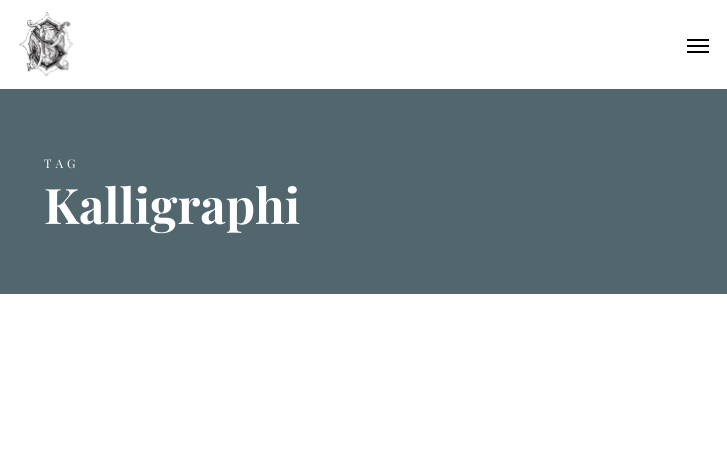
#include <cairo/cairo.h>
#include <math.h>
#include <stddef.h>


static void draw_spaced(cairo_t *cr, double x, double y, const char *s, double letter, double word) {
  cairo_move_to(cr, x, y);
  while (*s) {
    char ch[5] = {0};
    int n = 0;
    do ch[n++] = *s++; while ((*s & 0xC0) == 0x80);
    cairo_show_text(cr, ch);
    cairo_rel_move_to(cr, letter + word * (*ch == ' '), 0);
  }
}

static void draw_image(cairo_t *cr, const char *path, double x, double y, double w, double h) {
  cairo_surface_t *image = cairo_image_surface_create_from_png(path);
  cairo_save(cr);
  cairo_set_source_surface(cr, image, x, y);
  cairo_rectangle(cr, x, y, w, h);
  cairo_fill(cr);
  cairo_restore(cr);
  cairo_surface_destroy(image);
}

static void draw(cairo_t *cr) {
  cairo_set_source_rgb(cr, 1, 1, 1);
  cairo_paint(cr);
  draw_image(cr, "images/1.png", 19, 12, 55, 65);
  cairo_set_source_rgb(cr, 0, 0, 0);
  cairo_rectangle(cr, 687, 39, 22, 2);
  cairo_fill(cr);
  cairo_rectangle(cr, 687, 51, 22, 2);
  cairo_fill(cr);
  cairo_rectangle(cr, 687, 45, 22, 2);
  cairo_fill(cr);
  cairo_set_source_rgb(cr, 82 / 255.0, 102 / 255.0, 109 / 255.0);
  cairo_rectangle(cr, 0, 89, 727, 205);
  cairo_fill(cr);
  cairo_select_font_face(cr, "Playfair Display", CAIRO_FONT_SLANT_NORMAL, CAIRO_FONT_WEIGHT_NORMAL);
  cairo_set_font_size(cr, 12);
  cairo_set_source_rgb(cr, 1, 1, 1);
  draw_spaced(cr, 44, 168, "TAG", 4, 0);
  cairo_select_font_face(cr, "Playfair Display", CAIRO_FONT_SLANT_NORMAL, CAIRO_FONT_WEIGHT_BOLD);
  cairo_set_font_size(cr, 49);
  cairo_move_to(cr, 44, 224);
  cairo_show_text(cr, "Kalligraphi");
}

int main(void) {
  cairo_surface_t *surface = cairo_image_surface_create(CAIRO_FORMAT_RGB24, 727, 464);
  cairo_t *cr = cairo_create(surface);
  cairo_font_options_t *options = cairo_font_options_create();
  cairo_font_options_set_hint_metrics(options, CAIRO_HINT_METRICS_OFF);
  cairo_font_options_set_hint_style(options, CAIRO_HINT_STYLE_NONE);
  cairo_set_font_options(cr, options);
  cairo_set_miter_limit(cr, 4);
  draw(cr);
  cairo_surface_write_to_png(surface, "out.png");
  cairo_font_options_destroy(options);
  cairo_destroy(cr);
  cairo_surface_destroy(surface);
  return 0;
}
